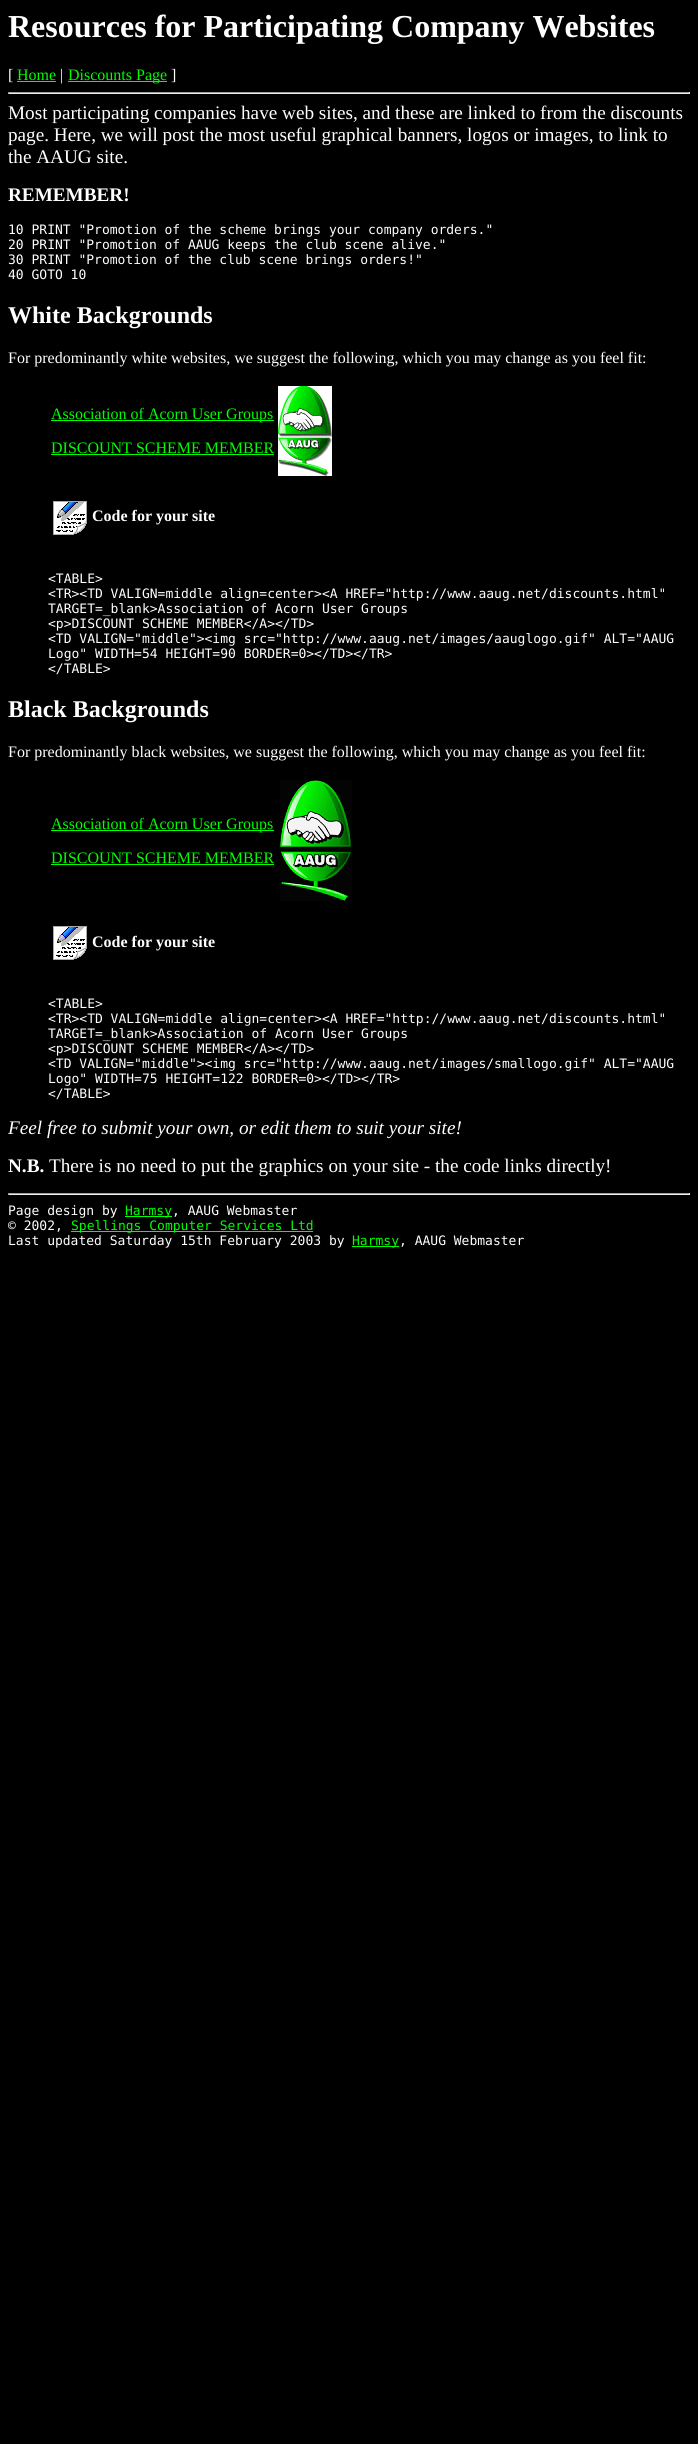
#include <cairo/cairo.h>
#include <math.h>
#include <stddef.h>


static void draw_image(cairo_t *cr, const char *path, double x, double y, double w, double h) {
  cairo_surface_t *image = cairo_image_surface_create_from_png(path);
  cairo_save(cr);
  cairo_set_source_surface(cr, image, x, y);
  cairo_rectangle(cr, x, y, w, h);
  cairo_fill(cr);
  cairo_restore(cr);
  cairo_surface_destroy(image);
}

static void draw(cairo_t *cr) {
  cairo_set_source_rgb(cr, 0, 0, 0);
  cairo_paint(cr);
  cairo_set_source_rgb(cr, 0, 1, 0);
  cairo_rectangle(cr, 17, 81, 39, 1);
  cairo_fill(cr);
  cairo_rectangle(cr, 68, 81, 99, 1);
  cairo_fill(cr);
  cairo_set_source_rgb(cr, 159 / 255.0, 159 / 255.0, 159 / 255.0);
  cairo_rectangle(cr, 8, 92, 682, 1);
  cairo_fill(cr);
  cairo_set_source_rgb(cr, 238 / 255.0, 238 / 255.0, 238 / 255.0);
  cairo_rectangle(cr, 689, 92, 1, 2);
  cairo_fill(cr);
  cairo_rectangle(cr, 8, 93, 682, 1);
  cairo_fill(cr);
  cairo_set_source_rgb(cr, 159 / 255.0, 159 / 255.0, 159 / 255.0);
  cairo_rectangle(cr, 8, 92, 1, 2);
  cairo_fill(cr);
  cairo_set_source_rgb(cr, 0, 1, 0);
  cairo_rectangle(cr, 51, 420, 223, 1);
  cairo_fill(cr);
  cairo_rectangle(cr, 51, 454, 223, 1);
  cairo_fill(cr);
  draw_image(cr, "images/1.png", 278, 386, 54, 90);
  draw_image(cr, "images/2.png", 53, 501, 34, 34);
  cairo_rectangle(cr, 51, 830, 223, 1);
  cairo_fill(cr);
  cairo_rectangle(cr, 51, 864, 223, 1);
  cairo_fill(cr);
  draw_image(cr, "images/3.png", 280, 780, 72, 121);
  draw_image(cr, "images/2.png", 53, 926, 34, 34);
  cairo_set_source_rgb(cr, 159 / 255.0, 159 / 255.0, 159 / 255.0);
  cairo_rectangle(cr, 8, 1193, 682, 1);
  cairo_fill(cr);
  cairo_set_source_rgb(cr, 238 / 255.0, 238 / 255.0, 238 / 255.0);
  cairo_rectangle(cr, 689, 1193, 1, 2);
  cairo_fill(cr);
  cairo_rectangle(cr, 8, 1194, 682, 1);
  cairo_fill(cr);
  cairo_set_source_rgb(cr, 159 / 255.0, 159 / 255.0, 159 / 255.0);
  cairo_rectangle(cr, 8, 1193, 1, 2);
  cairo_fill(cr);
  cairo_set_source_rgb(cr, 0, 1, 0);
  cairo_rectangle(cr, 125, 1216, 47, 1);
  cairo_fill(cr);
  cairo_rectangle(cr, 71, 1231, 242, 1);
  cairo_fill(cr);
  cairo_rectangle(cr, 352, 1246, 47, 1);
  cairo_fill(cr);
  cairo_select_font_face(cr, "Liberation Serif", CAIRO_FONT_SLANT_NORMAL, CAIRO_FONT_WEIGHT_BOLD);
  cairo_set_font_size(cr, 32);
  cairo_set_source_rgb(cr, 1, 1, 1);
  cairo_move_to(cr, 8, 37);
  cairo_show_text(cr, "Resources for Participating Company Websites");
  cairo_select_font_face(cr, "Liberation Serif", CAIRO_FONT_SLANT_NORMAL, CAIRO_FONT_WEIGHT_NORMAL);
  cairo_set_font_size(cr, 16);
  cairo_move_to(cr, 8, 80);
  cairo_show_text(cr, "[");
  cairo_set_source_rgb(cr, 0, 1, 0);
  cairo_move_to(cr, 17, 80);
  cairo_show_text(cr, "Home");
  cairo_set_source_rgb(cr, 1, 1, 1);
  cairo_move_to(cr, 60, 80);
  cairo_show_text(cr, "|");
  cairo_set_source_rgb(cr, 0, 1, 0);
  cairo_move_to(cr, 68, 80);
  cairo_show_text(cr, "Discounts Page");
  cairo_set_source_rgb(cr, 1, 1, 1);
  cairo_move_to(cr, 171, 80);
  cairo_show_text(cr, "]");
  cairo_set_font_size(cr, 19.2);
  cairo_move_to(cr, 8, 119);
  cairo_show_text(cr, "Most participating companies have web sites, and these are linked to from the discounts");
  cairo_move_to(cr, 8, 141);
  cairo_show_text(cr, "page. Here, we will post the most useful graphical banners, logos or images, to link to");
  cairo_move_to(cr, 8, 163);
  cairo_show_text(cr, "the AAUG site.");
  cairo_select_font_face(cr, "Liberation Serif", CAIRO_FONT_SLANT_NORMAL, CAIRO_FONT_WEIGHT_BOLD);
  cairo_move_to(cr, 8, 201);
  cairo_show_text(cr, "REMEMBER!");
  cairo_select_font_face(cr, "DejaVu Sans Mono", CAIRO_FONT_SLANT_NORMAL, CAIRO_FONT_WEIGHT_NORMAL);
  cairo_set_font_size(cr, 13);
  cairo_move_to(cr, 8, 234);
  cairo_show_text(cr, "10 PRINT \"Promotion of the scheme brings your company orders.\"");
  cairo_move_to(cr, 8, 249);
  cairo_show_text(cr, "20 PRINT \"Promotion of AAUG keeps the club scene alive.\"");
  cairo_move_to(cr, 8, 264);
  cairo_show_text(cr, "30 PRINT \"Promotion of the club scene brings orders!\"");
  cairo_move_to(cr, 8, 279);
  cairo_show_text(cr, "40 GOTO 10");
  cairo_select_font_face(cr, "Liberation Serif", CAIRO_FONT_SLANT_NORMAL, CAIRO_FONT_WEIGHT_BOLD);
  cairo_set_font_size(cr, 24);
  cairo_move_to(cr, 8, 323);
  cairo_show_text(cr, "White Backgrounds");
  cairo_select_font_face(cr, "Liberation Serif", CAIRO_FONT_SLANT_NORMAL, CAIRO_FONT_WEIGHT_NORMAL);
  cairo_set_font_size(cr, 16);
  cairo_move_to(cr, 8, 363);
  cairo_show_text(cr, "For predominantly white websites, we suggest the following, which you may change as you feel fit:");
  cairo_set_source_rgb(cr, 0, 1, 0);
  cairo_move_to(cr, 51, 419);
  cairo_show_text(cr, "Association of Acorn User Groups");
  cairo_move_to(cr, 51, 453);
  cairo_show_text(cr, "DISCOUNT SCHEME MEMBER");
  cairo_select_font_face(cr, "Liberation Serif", CAIRO_FONT_SLANT_NORMAL, CAIRO_FONT_WEIGHT_BOLD);
  cairo_set_source_rgb(cr, 1, 1, 1);
  cairo_move_to(cr, 92, 521);
  cairo_show_text(cr, "Code for your site");
  cairo_select_font_face(cr, "DejaVu Sans Mono", CAIRO_FONT_SLANT_NORMAL, CAIRO_FONT_WEIGHT_NORMAL);
  cairo_set_font_size(cr, 13);
  cairo_move_to(cr, 48, 583);
  cairo_show_text(cr, "<TABLE>");
  cairo_move_to(cr, 48, 598);
  cairo_show_text(cr, "<TR><TD VALIGN=middle align=center><A HREF=\"http://www.aaug.net/discounts.html\"");
  cairo_move_to(cr, 48, 613);
  cairo_show_text(cr, "TARGET=_blank>Association of Acorn User Groups");
  cairo_move_to(cr, 48, 628);
  cairo_show_text(cr, "<p>DISCOUNT SCHEME MEMBER</A></TD>");
  cairo_move_to(cr, 48, 643);
  cairo_show_text(cr, "<TD VALIGN=\"middle\"><img src=\"http://www.aaug.net/images/aauglogo.gif\" ALT=\"AAUG");
  cairo_move_to(cr, 48, 658);
  cairo_show_text(cr, "Logo\" WIDTH=54 HEIGHT=90 BORDER=0></TD></TR>");
  cairo_move_to(cr, 48, 673);
  cairo_show_text(cr, "</TABLE>");
  cairo_select_font_face(cr, "Liberation Serif", CAIRO_FONT_SLANT_NORMAL, CAIRO_FONT_WEIGHT_BOLD);
  cairo_set_font_size(cr, 24);
  cairo_move_to(cr, 8, 717);
  cairo_show_text(cr, "Black Backgrounds");
  cairo_select_font_face(cr, "Liberation Serif", CAIRO_FONT_SLANT_NORMAL, CAIRO_FONT_WEIGHT_NORMAL);
  cairo_set_font_size(cr, 16);
  cairo_move_to(cr, 8, 757);
  cairo_show_text(cr, "For predominantly black websites, we suggest the following, which you may change as you feel fit:");
  cairo_set_source_rgb(cr, 0, 1, 0);
  cairo_move_to(cr, 51, 829);
  cairo_show_text(cr, "Association of Acorn User Groups");
  cairo_move_to(cr, 51, 863);
  cairo_show_text(cr, "DISCOUNT SCHEME MEMBER");
  cairo_select_font_face(cr, "Liberation Serif", CAIRO_FONT_SLANT_NORMAL, CAIRO_FONT_WEIGHT_BOLD);
  cairo_set_source_rgb(cr, 1, 1, 1);
  cairo_move_to(cr, 92, 947);
  cairo_show_text(cr, "Code for your site");
  cairo_select_font_face(cr, "DejaVu Sans Mono", CAIRO_FONT_SLANT_NORMAL, CAIRO_FONT_WEIGHT_NORMAL);
  cairo_set_font_size(cr, 13);
  cairo_move_to(cr, 48, 1008);
  cairo_show_text(cr, "<TABLE>");
  cairo_move_to(cr, 48, 1023);
  cairo_show_text(cr, "<TR><TD VALIGN=middle align=center><A HREF=\"http://www.aaug.net/discounts.html\"");
  cairo_move_to(cr, 48, 1038);
  cairo_show_text(cr, "TARGET=_blank>Association of Acorn User Groups");
  cairo_move_to(cr, 48, 1053);
  cairo_show_text(cr, "<p>DISCOUNT SCHEME MEMBER</A></TD>");
  cairo_move_to(cr, 48, 1068);
  cairo_show_text(cr, "<TD VALIGN=\"middle\"><img src=\"http://www.aaug.net/images/smallogo.gif\" ALT=\"AAUG");
  cairo_move_to(cr, 48, 1083);
  cairo_show_text(cr, "Logo\" WIDTH=75 HEIGHT=122 BORDER=0></TD></TR>");
  cairo_move_to(cr, 48, 1098);
  cairo_show_text(cr, "</TABLE>");
  cairo_select_font_face(cr, "Liberation Serif", CAIRO_FONT_SLANT_ITALIC, CAIRO_FONT_WEIGHT_NORMAL);
  cairo_set_font_size(cr, 19.2);
  cairo_move_to(cr, 8, 1134);
  cairo_show_text(cr, "Feel free to submit your own, or edit them to suit your site!");
  cairo_select_font_face(cr, "Liberation Serif", CAIRO_FONT_SLANT_NORMAL, CAIRO_FONT_WEIGHT_BOLD);
  cairo_move_to(cr, 8, 1172);
  cairo_show_text(cr, "N.B.");
  cairo_select_font_face(cr, "Liberation Serif", CAIRO_FONT_SLANT_NORMAL, CAIRO_FONT_WEIGHT_NORMAL);
  cairo_move_to(cr, 49, 1172);
  cairo_show_text(cr, "There is no need to put the graphics on your site - the code links directly!");
  cairo_select_font_face(cr, "DejaVu Sans Mono", CAIRO_FONT_SLANT_NORMAL, CAIRO_FONT_WEIGHT_NORMAL);
  cairo_set_font_size(cr, 13);
  cairo_move_to(cr, 8, 1215);
  cairo_show_text(cr, "Page design by");
  cairo_set_source_rgb(cr, 0, 1, 0);
  cairo_move_to(cr, 125, 1215);
  cairo_show_text(cr, "Harmsy");
  cairo_set_source_rgb(cr, 1, 1, 1);
  cairo_move_to(cr, 172, 1215);
  cairo_show_text(cr, ", AAUG Webmaster");
  cairo_move_to(cr, 8, 1230);
  cairo_show_text(cr, "© 2002,");
  cairo_set_source_rgb(cr, 0, 1, 0);
  cairo_move_to(cr, 71, 1230);
  cairo_show_text(cr, "Spellings Computer Services Ltd");
  cairo_set_source_rgb(cr, 1, 1, 1);
  cairo_move_to(cr, 8, 1245);
  cairo_show_text(cr, "Last updated Saturday 15th February 2003 by");
  cairo_set_source_rgb(cr, 0, 1, 0);
  cairo_move_to(cr, 352, 1245);
  cairo_show_text(cr, "Harmsy");
  cairo_set_source_rgb(cr, 1, 1, 1);
  cairo_move_to(cr, 399, 1245);
  cairo_show_text(cr, ", AAUG Webmaster");
}

int main(void) {
  cairo_surface_t *surface = cairo_image_surface_create(CAIRO_FORMAT_RGB24, 698, 2444);
  cairo_t *cr = cairo_create(surface);
  cairo_font_options_t *options = cairo_font_options_create();
  cairo_font_options_set_hint_metrics(options, CAIRO_HINT_METRICS_OFF);
  cairo_font_options_set_hint_style(options, CAIRO_HINT_STYLE_NONE);
  cairo_set_font_options(cr, options);
  cairo_set_miter_limit(cr, 4);
  draw(cr);
  cairo_surface_write_to_png(surface, "out.png");
  cairo_font_options_destroy(options);
  cairo_destroy(cr);
  cairo_surface_destroy(surface);
  return 0;
}
